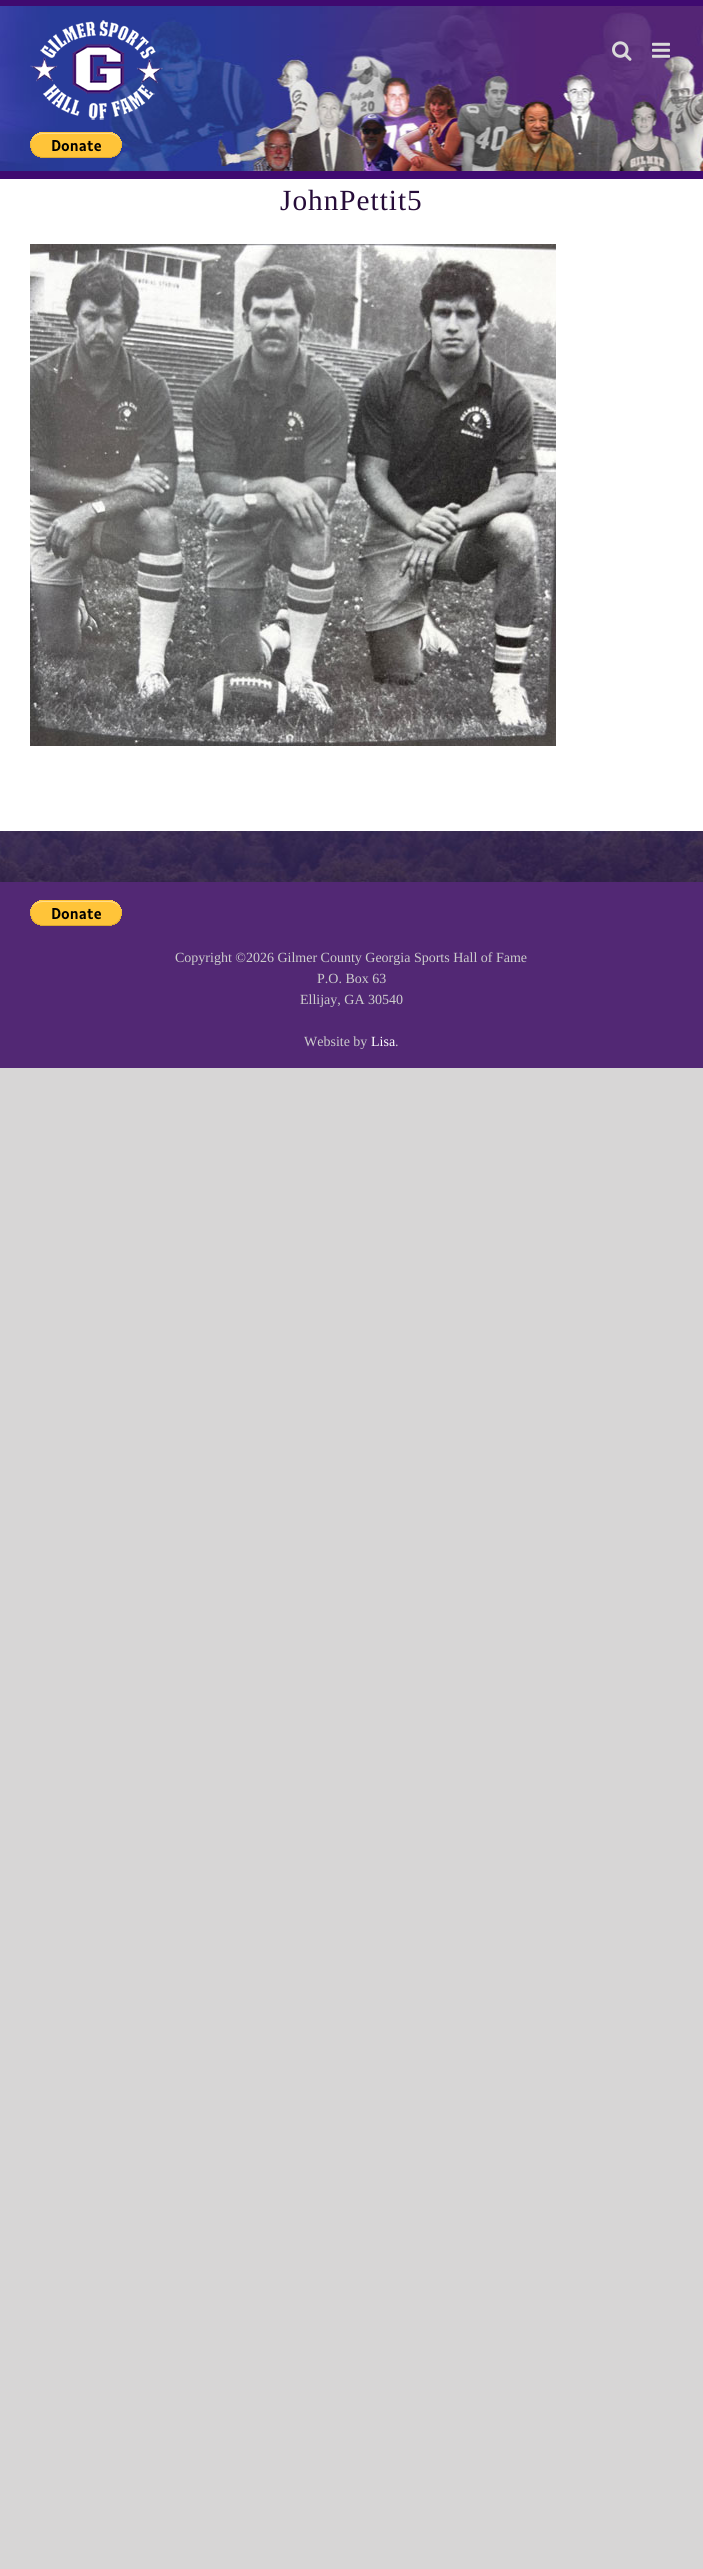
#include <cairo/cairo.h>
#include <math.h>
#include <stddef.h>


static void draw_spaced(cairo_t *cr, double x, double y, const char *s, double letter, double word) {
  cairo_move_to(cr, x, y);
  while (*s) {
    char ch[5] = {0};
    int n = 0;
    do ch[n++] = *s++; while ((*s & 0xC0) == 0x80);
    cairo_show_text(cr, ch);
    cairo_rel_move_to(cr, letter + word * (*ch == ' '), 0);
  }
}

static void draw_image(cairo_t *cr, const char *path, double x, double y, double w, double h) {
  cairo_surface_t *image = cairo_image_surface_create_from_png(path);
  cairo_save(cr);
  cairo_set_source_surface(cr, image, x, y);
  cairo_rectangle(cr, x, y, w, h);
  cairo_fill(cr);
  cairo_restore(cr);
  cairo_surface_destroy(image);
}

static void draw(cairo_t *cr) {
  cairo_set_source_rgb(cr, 215 / 255.0, 214 / 255.0, 214 / 255.0);
  cairo_paint(cr);
  cairo_set_source_rgb(cr, 1, 1, 1);
  cairo_rectangle(cr, 0, 179, 703, 652);
  cairo_fill(cr);
  cairo_set_source_rgb(cr, 63 / 255.0, 10 / 255.0, 112 / 255.0);
  cairo_rectangle(cr, 0, 0, 703, 179);
  cairo_fill(cr);
  draw_image(cr, "images/1.png", 0, 6, 703, 165);
  draw_image(cr, "images/2.png", 30, 20, 133, 100);
  draw_image(cr, "images/3.png", 30, 132, 92, 26);
  draw_image(cr, "images/4.png", 612, 41, 20, 20);
  draw_image(cr, "images/5.png", 652, 42, 18, 16);
  draw_image(cr, "images/6.png", 30, 244, 526, 502);
  draw_image(cr, "images/7.png", 0, 831, 703, 51);
  cairo_set_source_rgb(cr, 82 / 255.0, 40 / 255.0, 116 / 255.0);
  cairo_rectangle(cr, 0, 882, 703, 186);
  cairo_fill(cr);
  draw_image(cr, "images/8.png", 30, 900, 92, 26);
  cairo_select_font_face(cr, "Liberation Serif", CAIRO_FONT_SLANT_NORMAL, CAIRO_FONT_WEIGHT_NORMAL);
  cairo_set_font_size(cr, 29.25);
  cairo_set_source_rgb(cr, 38 / 255.0, 12 / 255.0, 57 / 255.0);
  draw_spaced(cr, 280, 210, "JohnPettit5", 1, 0);
  cairo_set_font_size(cr, 14);
  cairo_set_source_rgb(cr, 204 / 255.0, 204 / 255.0, 204 / 255.0);
  cairo_move_to(cr, 175, 962);
  cairo_show_text(cr, "Copyright ©2026 Gilmer County Georgia Sports Hall of Fame");
  cairo_move_to(cr, 317, 983);
  cairo_show_text(cr, "P.O. Box 63");
  cairo_move_to(cr, 300, 1004);
  cairo_show_text(cr, "Ellijay, GA 30540");
  cairo_move_to(cr, 304, 1046);
  cairo_show_text(cr, "Website by");
  cairo_set_source_rgb(cr, 1, 1, 1);
  cairo_move_to(cr, 371, 1046);
  cairo_show_text(cr, "Lisa");
  cairo_set_source_rgb(cr, 204 / 255.0, 204 / 255.0, 204 / 255.0);
  cairo_move_to(cr, 395, 1046);
  cairo_show_text(cr, ".");
}

int main(void) {
  cairo_surface_t *surface = cairo_image_surface_create(CAIRO_FORMAT_RGB24, 703, 2569);
  cairo_t *cr = cairo_create(surface);
  cairo_font_options_t *options = cairo_font_options_create();
  cairo_font_options_set_hint_metrics(options, CAIRO_HINT_METRICS_OFF);
  cairo_font_options_set_hint_style(options, CAIRO_HINT_STYLE_NONE);
  cairo_set_font_options(cr, options);
  cairo_set_miter_limit(cr, 4);
  draw(cr);
  cairo_surface_write_to_png(surface, "out.png");
  cairo_font_options_destroy(options);
  cairo_destroy(cr);
  cairo_surface_destroy(surface);
  return 0;
}
